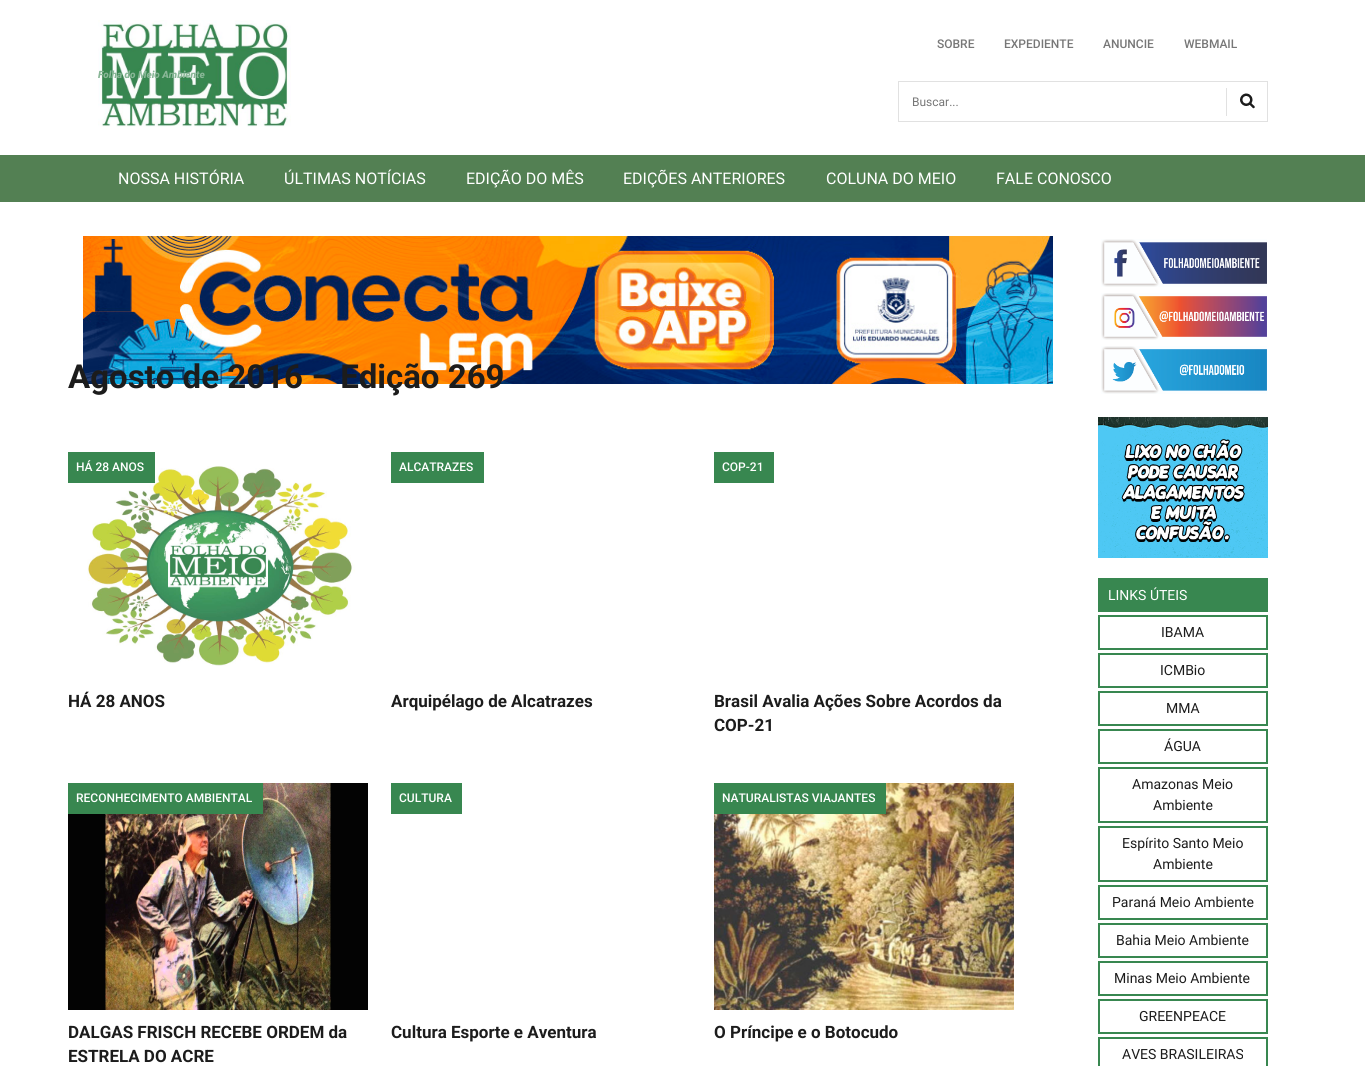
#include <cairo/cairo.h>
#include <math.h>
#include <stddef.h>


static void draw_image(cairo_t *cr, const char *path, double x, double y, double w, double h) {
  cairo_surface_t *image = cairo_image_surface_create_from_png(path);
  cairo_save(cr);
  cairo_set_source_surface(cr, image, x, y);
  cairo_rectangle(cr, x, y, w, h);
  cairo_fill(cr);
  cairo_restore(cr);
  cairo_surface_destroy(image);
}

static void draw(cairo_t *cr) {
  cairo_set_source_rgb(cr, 1, 1, 1);
  cairo_paint(cr);
  draw_image(cr, "images/1.png", 98, 20, 193, 107);
  cairo_rectangle(cr, 898.5, 81.5, 369, 40);
  cairo_set_source_rgb(cr, 225 / 255.0, 225 / 255.0, 225 / 255.0);
  cairo_set_line_width(cr, 1);
  cairo_stroke(cr);
  cairo_rectangle(cr, 1226, 88, 1, 28);
  cairo_fill(cr);
  draw_image(cr, "images/2.png", 1240, 93, 15, 16);
  cairo_set_source_rgb(cr, 83 / 255.0, 128 / 255.0, 83 / 255.0);
  cairo_rectangle(cr, 0, 155, 1365, 47);
  cairo_fill(cr);
  draw_image(cr, "images/3.png", 83, 236, 970, 148);
  draw_image(cr, "images/4.png", 87, 466, 268, 200);
  cairo_set_source_rgb(cr, 56 / 255.0, 135 / 255.0, 80 / 255.0);
  cairo_rectangle(cr, 68, 452, 87, 31);
  cairo_fill(cr);
  cairo_rectangle(cr, 391, 452, 93, 31);
  cairo_fill(cr);
  cairo_rectangle(cr, 714, 452, 60, 31);
  cairo_fill(cr);
  draw_image(cr, "images/5.png", 68, 783, 300, 227);
  cairo_rectangle(cr, 68, 783, 195, 31);
  cairo_fill(cr);
  cairo_rectangle(cr, 391, 783, 71, 31);
  cairo_fill(cr);
  draw_image(cr, "images/6.png", 714, 783, 300, 227);
  cairo_rectangle(cr, 714, 783, 172, 31);
  cairo_fill(cr);
  draw_image(cr, "images/7.png", 1101, 239, 166, 48);
  draw_image(cr, "images/8.png", 1101, 293, 166, 47);
  draw_image(cr, "images/9.png", 1101, 346, 166, 48);
  draw_image(cr, "images/10.png", 1098, 417, 170, 141);
  cairo_rectangle(cr, 1098, 578, 170, 34);
  cairo_fill(cr);
  cairo_rectangle(cr, 1099, 616, 168, 33);
  cairo_set_line_width(cr, 2);
  cairo_stroke(cr);
  cairo_rectangle(cr, 1099, 654, 168, 33);
  cairo_stroke(cr);
  cairo_rectangle(cr, 1099, 692, 168, 33);
  cairo_stroke(cr);
  cairo_rectangle(cr, 1099, 730, 168, 33);
  cairo_stroke(cr);
  cairo_rectangle(cr, 1099, 768, 168, 54);
  cairo_stroke(cr);
  cairo_rectangle(cr, 1099, 827, 168, 54);
  cairo_stroke(cr);
  cairo_rectangle(cr, 1099, 886, 168, 33);
  cairo_stroke(cr);
  cairo_rectangle(cr, 1099, 924, 168, 33);
  cairo_stroke(cr);
  cairo_rectangle(cr, 1099, 962, 168, 33);
  cairo_stroke(cr);
  cairo_rectangle(cr, 1099, 1000, 168, 33);
  cairo_stroke(cr);
  cairo_rectangle(cr, 1099, 1038, 168, 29);
  cairo_stroke(cr);
  cairo_select_font_face(cr, "Roboto Black", CAIRO_FONT_SLANT_ITALIC, CAIRO_FONT_WEIGHT_NORMAL);
  cairo_set_font_size(cr, 10);
  cairo_set_source_rgb(cr, 136 / 255.0, 182 / 255.0, 150 / 255.0);
  cairo_move_to(cr, 98, 78);
  cairo_show_text(cr, "Folha do Meio Ambiente");
  cairo_select_font_face(cr, "Roboto Medium", CAIRO_FONT_SLANT_NORMAL, CAIRO_FONT_WEIGHT_NORMAL);
  cairo_set_font_size(cr, 12);
  cairo_set_source_rgb(cr, 119 / 255.0, 119 / 255.0, 119 / 255.0);
  cairo_move_to(cr, 937, 48);
  cairo_show_text(cr, "SOBRE");
  cairo_move_to(cr, 1004, 48);
  cairo_show_text(cr, "EXPEDIENTE");
  cairo_move_to(cr, 1103, 48);
  cairo_show_text(cr, "ANUNCIE");
  cairo_move_to(cr, 1184, 48);
  cairo_show_text(cr, "WEBMAIL");
  cairo_select_font_face(cr, "Roboto", CAIRO_FONT_SLANT_NORMAL, CAIRO_FONT_WEIGHT_NORMAL);
  cairo_move_to(cr, 912, 106);
  cairo_show_text(cr, "Buscar...");
  cairo_set_font_size(cr, 16);
  cairo_set_source_rgb(cr, 1, 1, 1);
  cairo_move_to(cr, 118, 184);
  cairo_show_text(cr, "NOSSA HISTÓRIA");
  cairo_move_to(cr, 284, 184);
  cairo_show_text(cr, "ÚLTIMAS NOTÍCIAS");
  cairo_move_to(cr, 466, 184);
  cairo_show_text(cr, "EDIÇÃO DO MÊS");
  cairo_move_to(cr, 623, 184);
  cairo_show_text(cr, "EDIÇÕES ANTERIORES");
  cairo_move_to(cr, 826, 184);
  cairo_show_text(cr, "COLUNA DO MEIO");
  cairo_move_to(cr, 996, 184);
  cairo_show_text(cr, "FALE CONOSCO");
  cairo_select_font_face(cr, "Roboto", CAIRO_FONT_SLANT_NORMAL, CAIRO_FONT_WEIGHT_BOLD);
  cairo_set_font_size(cr, 33);
  cairo_set_source_rgb(cr, 28 / 255.0, 28 / 255.0, 28 / 255.0);
  cairo_move_to(cr, 68, 388);
  cairo_show_text(cr, "Agosto de 2016 – Edição 269");
  cairo_select_font_face(cr, "Roboto Medium", CAIRO_FONT_SLANT_NORMAL, CAIRO_FONT_WEIGHT_NORMAL);
  cairo_set_font_size(cr, 12);
  cairo_set_source_rgb(cr, 1, 1, 1);
  cairo_move_to(cr, 76, 471);
  cairo_show_text(cr, "HÁ 28 ANOS");
  cairo_select_font_face(cr, "Roboto", CAIRO_FONT_SLANT_NORMAL, CAIRO_FONT_WEIGHT_BOLD);
  cairo_set_font_size(cr, 17);
  cairo_set_source_rgb(cr, 28 / 255.0, 28 / 255.0, 28 / 255.0);
  cairo_move_to(cr, 68, 707);
  cairo_show_text(cr, "HÁ 28 ANOS");
  cairo_select_font_face(cr, "Roboto Medium", CAIRO_FONT_SLANT_NORMAL, CAIRO_FONT_WEIGHT_NORMAL);
  cairo_set_font_size(cr, 12);
  cairo_set_source_rgb(cr, 1, 1, 1);
  cairo_move_to(cr, 399, 471);
  cairo_show_text(cr, "ALCATRAZES");
  cairo_select_font_face(cr, "Roboto", CAIRO_FONT_SLANT_NORMAL, CAIRO_FONT_WEIGHT_BOLD);
  cairo_set_font_size(cr, 17);
  cairo_set_source_rgb(cr, 28 / 255.0, 28 / 255.0, 28 / 255.0);
  cairo_move_to(cr, 391, 707);
  cairo_show_text(cr, "Arquipélago de Alcatrazes");
  cairo_select_font_face(cr, "Roboto Medium", CAIRO_FONT_SLANT_NORMAL, CAIRO_FONT_WEIGHT_NORMAL);
  cairo_set_font_size(cr, 12);
  cairo_set_source_rgb(cr, 1, 1, 1);
  cairo_move_to(cr, 722, 471);
  cairo_show_text(cr, "COP-21");
  cairo_select_font_face(cr, "Roboto", CAIRO_FONT_SLANT_NORMAL, CAIRO_FONT_WEIGHT_BOLD);
  cairo_set_font_size(cr, 17);
  cairo_set_source_rgb(cr, 28 / 255.0, 28 / 255.0, 28 / 255.0);
  cairo_move_to(cr, 714, 707);
  cairo_show_text(cr, "Brasil Avalia Ações Sobre Acordos da");
  cairo_move_to(cr, 714, 731);
  cairo_show_text(cr, "COP-21");
  cairo_select_font_face(cr, "Roboto Medium", CAIRO_FONT_SLANT_NORMAL, CAIRO_FONT_WEIGHT_NORMAL);
  cairo_set_font_size(cr, 12);
  cairo_set_source_rgb(cr, 1, 1, 1);
  cairo_move_to(cr, 76, 802);
  cairo_show_text(cr, "RECONHECIMENTO AMBIENTAL");
  cairo_select_font_face(cr, "Roboto", CAIRO_FONT_SLANT_NORMAL, CAIRO_FONT_WEIGHT_BOLD);
  cairo_set_font_size(cr, 17);
  cairo_set_source_rgb(cr, 28 / 255.0, 28 / 255.0, 28 / 255.0);
  cairo_move_to(cr, 68, 1038);
  cairo_show_text(cr, "DALGAS FRISCH RECEBE ORDEM da");
  cairo_move_to(cr, 68, 1062);
  cairo_show_text(cr, "ESTRELA DO ACRE");
  cairo_select_font_face(cr, "Roboto Medium", CAIRO_FONT_SLANT_NORMAL, CAIRO_FONT_WEIGHT_NORMAL);
  cairo_set_font_size(cr, 12);
  cairo_set_source_rgb(cr, 1, 1, 1);
  cairo_move_to(cr, 399, 802);
  cairo_show_text(cr, "CULTURA");
  cairo_select_font_face(cr, "Roboto", CAIRO_FONT_SLANT_NORMAL, CAIRO_FONT_WEIGHT_BOLD);
  cairo_set_font_size(cr, 17);
  cairo_set_source_rgb(cr, 28 / 255.0, 28 / 255.0, 28 / 255.0);
  cairo_move_to(cr, 391, 1038);
  cairo_show_text(cr, "Cultura Esporte e Aventura");
  cairo_select_font_face(cr, "Roboto Medium", CAIRO_FONT_SLANT_NORMAL, CAIRO_FONT_WEIGHT_NORMAL);
  cairo_set_font_size(cr, 12);
  cairo_set_source_rgb(cr, 1, 1, 1);
  cairo_move_to(cr, 722, 802);
  cairo_show_text(cr, "NATURALISTAS VIAJANTES");
  cairo_select_font_face(cr, "Roboto", CAIRO_FONT_SLANT_NORMAL, CAIRO_FONT_WEIGHT_BOLD);
  cairo_set_font_size(cr, 17);
  cairo_set_source_rgb(cr, 28 / 255.0, 28 / 255.0, 28 / 255.0);
  cairo_move_to(cr, 714, 1038);
  cairo_show_text(cr, "O Príncipe e o Botocudo");
  cairo_select_font_face(cr, "Roboto", CAIRO_FONT_SLANT_NORMAL, CAIRO_FONT_WEIGHT_NORMAL);
  cairo_set_font_size(cr, 14);
  cairo_set_source_rgb(cr, 1, 1, 1);
  cairo_move_to(cr, 1108, 600);
  cairo_show_text(cr, "LINKS ÚTEIS");
  cairo_set_source_rgb(cr, 28 / 255.0, 28 / 255.0, 28 / 255.0);
  cairo_move_to(cr, 1161, 637);
  cairo_show_text(cr, "IBAMA");
  cairo_move_to(cr, 1160, 675);
  cairo_show_text(cr, "ICMBio");
  cairo_move_to(cr, 1166, 713);
  cairo_show_text(cr, "MMA");
  cairo_move_to(cr, 1164, 751);
  cairo_show_text(cr, "ÁGUA");
  cairo_move_to(cr, 1132, 789);
  cairo_show_text(cr, "Amazonas Meio");
  cairo_move_to(cr, 1153, 810);
  cairo_show_text(cr, "Ambiente");
  cairo_move_to(cr, 1122, 848);
  cairo_show_text(cr, "Espírito Santo Meio");
  cairo_move_to(cr, 1153, 869);
  cairo_show_text(cr, "Ambiente");
  cairo_move_to(cr, 1112, 907);
  cairo_show_text(cr, "Paraná Meio Ambiente");
  cairo_move_to(cr, 1116, 945);
  cairo_show_text(cr, "Bahia Meio Ambiente");
  cairo_move_to(cr, 1114, 983);
  cairo_show_text(cr, "Minas Meio Ambiente");
  cairo_move_to(cr, 1139, 1021);
  cairo_show_text(cr, "GREENPEACE");
  cairo_move_to(cr, 1122, 1059);
  cairo_show_text(cr, "AVES BRASILEIRAS");
}

int main(void) {
  cairo_surface_t *surface = cairo_image_surface_create(CAIRO_FORMAT_RGB24, 1365, 1066);
  cairo_t *cr = cairo_create(surface);
  cairo_font_options_t *options = cairo_font_options_create();
  cairo_font_options_set_hint_metrics(options, CAIRO_HINT_METRICS_OFF);
  cairo_font_options_set_hint_style(options, CAIRO_HINT_STYLE_NONE);
  cairo_set_font_options(cr, options);
  cairo_set_miter_limit(cr, 4);
  draw(cr);
  cairo_surface_write_to_png(surface, "out.png");
  cairo_font_options_destroy(options);
  cairo_destroy(cr);
  cairo_surface_destroy(surface);
  return 0;
}
